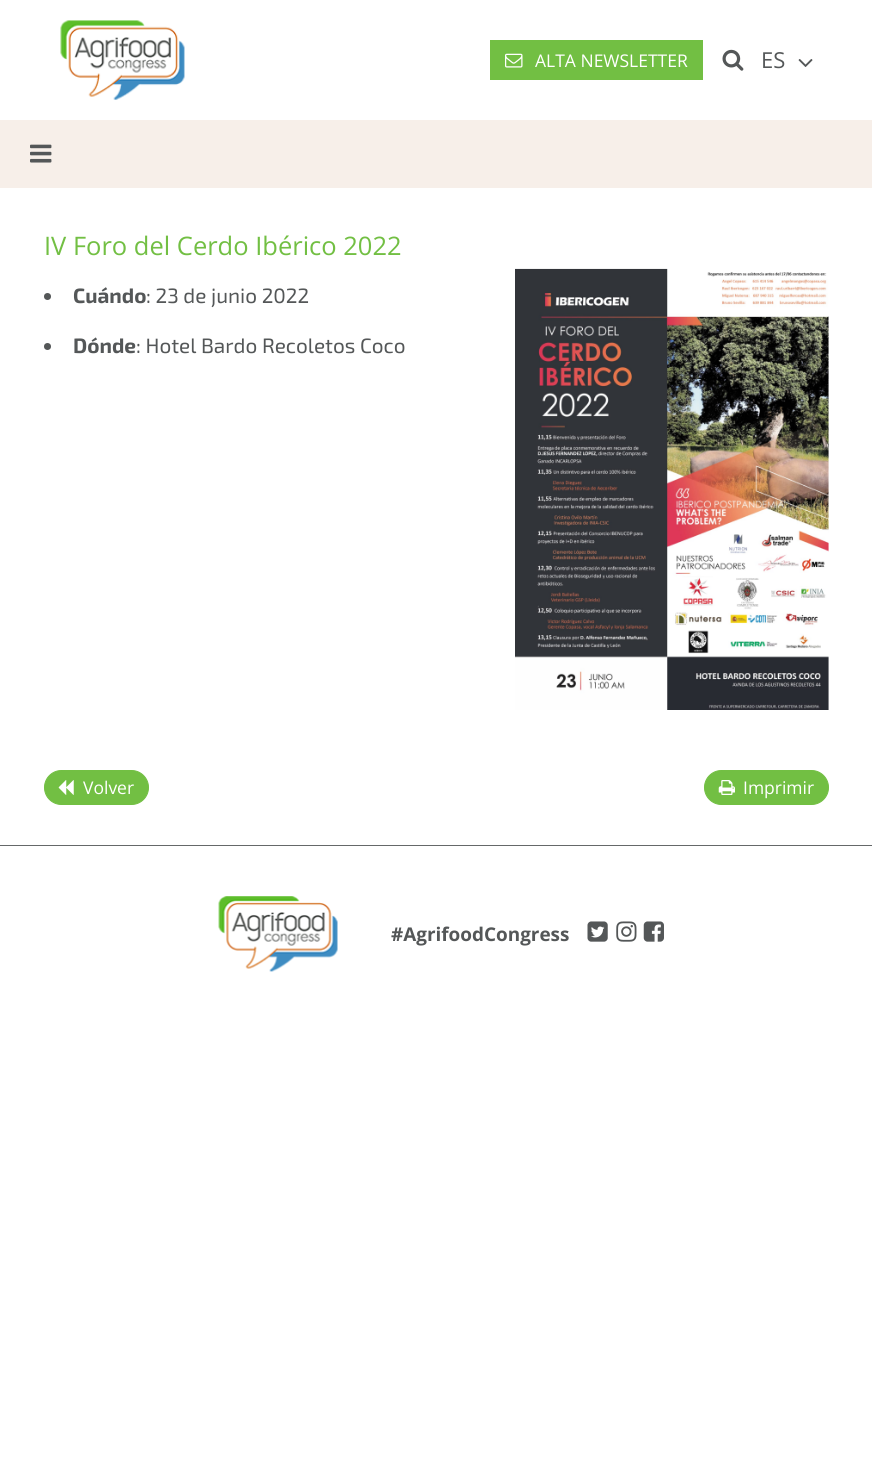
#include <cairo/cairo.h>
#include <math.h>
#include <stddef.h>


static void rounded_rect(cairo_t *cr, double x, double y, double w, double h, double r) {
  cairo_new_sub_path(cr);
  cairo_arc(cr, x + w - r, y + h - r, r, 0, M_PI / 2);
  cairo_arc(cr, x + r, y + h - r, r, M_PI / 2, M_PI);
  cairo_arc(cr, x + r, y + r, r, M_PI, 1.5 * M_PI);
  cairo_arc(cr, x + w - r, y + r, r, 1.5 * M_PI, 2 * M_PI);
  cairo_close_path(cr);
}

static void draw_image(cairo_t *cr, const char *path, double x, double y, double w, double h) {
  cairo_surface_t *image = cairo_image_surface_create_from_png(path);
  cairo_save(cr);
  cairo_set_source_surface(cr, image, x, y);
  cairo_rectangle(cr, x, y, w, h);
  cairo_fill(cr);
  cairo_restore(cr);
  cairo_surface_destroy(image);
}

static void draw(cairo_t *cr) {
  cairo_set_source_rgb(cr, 1, 1, 1);
  cairo_paint(cr);
  draw_image(cr, "images/1.png", 60, 20, 125, 80);
  cairo_set_source_rgb(cr, 114 / 255.0, 191 / 255.0, 67 / 255.0);
  cairo_rectangle(cr, 490, 40, 213, 40);
  cairo_fill(cr);
  draw_image(cr, "images/2.png", 505, 53, 18, 15);
  draw_image(cr, "images/3.png", 722, 49, 22, 22);
  draw_image(cr, "images/4.png", 798, 59, 15, 8);
  cairo_set_source_rgb(cr, 247 / 255.0, 239 / 255.0, 233 / 255.0);
  cairo_rectangle(cr, 0, 120, 872, 68);
  cairo_fill(cr);
  draw_image(cr, "images/5.png", 30, 144, 22, 19);
  cairo_set_source_rgb(cr, 84 / 255.0, 87 / 255.0, 88 / 255.0);
  cairo_arc(cr, 47.5, 296.5, 3.5, 0, 2 * M_PI);
  cairo_fill(cr);
  cairo_arc(cr, 47.5, 346.5, 3.5, 0, 2 * M_PI);
  cairo_fill(cr);
  draw_image(cr, "images/6.png", 515, 268, 314, 442);
  cairo_set_source_rgb(cr, 114 / 255.0, 191 / 255.0, 67 / 255.0);
  rounded_rect(cr, 44.5, 770.5, 104, 34, 17);
  cairo_fill_preserve(cr);
  cairo_set_line_width(cr, 1);
  cairo_stroke(cr);
  draw_image(cr, "images/7.png", 58, 780, 16, 15);
  rounded_rect(cr, 704.5, 770.5, 124, 34, 17);
  cairo_fill_preserve(cr);
  cairo_stroke(cr);
  draw_image(cr, "images/8.png", 718, 780, 17, 15);
  cairo_set_source_rgb(cr, 101 / 255.0, 104 / 255.0, 105 / 255.0);
  cairo_rectangle(cr, 0, 845, 872, 1);
  cairo_fill(cr);
  draw_image(cr, "images/9.png", 218, 896, 120, 76);
  draw_image(cr, "images/10.png", 587, 921, 21, 21);
  draw_image(cr, "images/11.png", 616, 921, 21, 21);
  draw_image(cr, "images/12.png", 643, 921, 21, 21);
  cairo_select_font_face(cr, "Open Sans", CAIRO_FONT_SLANT_NORMAL, CAIRO_FONT_WEIGHT_NORMAL);
  cairo_set_font_size(cr, 17.5);
  cairo_set_source_rgb(cr, 1, 1, 1);
  cairo_move_to(cr, 535, 67);
  cairo_show_text(cr, "ALTA NEWSLETTER");
  cairo_set_font_size(cr, 22);
  cairo_set_source_rgb(cr, 84 / 255.0, 87 / 255.0, 88 / 255.0);
  cairo_move_to(cr, 761, 68);
  cairo_show_text(cr, "ES");
  cairo_set_font_size(cr, 25.5);
  cairo_set_source_rgb(cr, 114 / 255.0, 191 / 255.0, 67 / 255.0);
  cairo_move_to(cr, 44, 255);
  cairo_show_text(cr, "IV Foro del Cerdo Ibérico 2022");
  cairo_select_font_face(cr, "Exo 2", CAIRO_FONT_SLANT_NORMAL, CAIRO_FONT_WEIGHT_BOLD);
  cairo_set_font_size(cr, 20.75);
  cairo_set_source_rgb(cr, 84 / 255.0, 87 / 255.0, 88 / 255.0);
  cairo_move_to(cr, 73, 303);
  cairo_show_text(cr, "Cuándo");
  cairo_select_font_face(cr, "Exo 2", CAIRO_FONT_SLANT_NORMAL, CAIRO_FONT_WEIGHT_NORMAL);
  cairo_move_to(cr, 146, 303);
  cairo_show_text(cr, ": 23 de junio 2022");
  cairo_select_font_face(cr, "Exo 2", CAIRO_FONT_SLANT_NORMAL, CAIRO_FONT_WEIGHT_BOLD);
  cairo_move_to(cr, 73, 353);
  cairo_show_text(cr, "Dónde");
  cairo_select_font_face(cr, "Exo 2", CAIRO_FONT_SLANT_NORMAL, CAIRO_FONT_WEIGHT_NORMAL);
  cairo_move_to(cr, 136, 353);
  cairo_show_text(cr, ": Hotel Bardo Recoletos Coco");
  cairo_select_font_face(cr, "Open Sans", CAIRO_FONT_SLANT_NORMAL, CAIRO_FONT_WEIGHT_NORMAL);
  cairo_set_font_size(cr, 17.5);
  cairo_set_source_rgb(cr, 1, 1, 1);
  cairo_move_to(cr, 83, 794);
  cairo_show_text(cr, "Volver");
  cairo_move_to(cr, 743, 794);
  cairo_show_text(cr, "Imprimir");
  cairo_select_font_face(cr, "Open Sans", CAIRO_FONT_SLANT_NORMAL, CAIRO_FONT_WEIGHT_BOLD);
  cairo_set_font_size(cr, 18.9);
  cairo_set_source_rgb(cr, 84 / 255.0, 87 / 255.0, 88 / 255.0);
  cairo_move_to(cr, 391, 941);
  cairo_show_text(cr, "#AgrifoodCongress");
}

int main(void) {
  cairo_surface_t *surface = cairo_image_surface_create(CAIRO_FORMAT_RGB24, 872, 1457);
  cairo_t *cr = cairo_create(surface);
  cairo_font_options_t *options = cairo_font_options_create();
  cairo_font_options_set_hint_metrics(options, CAIRO_HINT_METRICS_OFF);
  cairo_font_options_set_hint_style(options, CAIRO_HINT_STYLE_NONE);
  cairo_set_font_options(cr, options);
  cairo_set_miter_limit(cr, 4);
  draw(cr);
  cairo_surface_write_to_png(surface, "out.png");
  cairo_font_options_destroy(options);
  cairo_destroy(cr);
  cairo_surface_destroy(surface);
  return 0;
}
